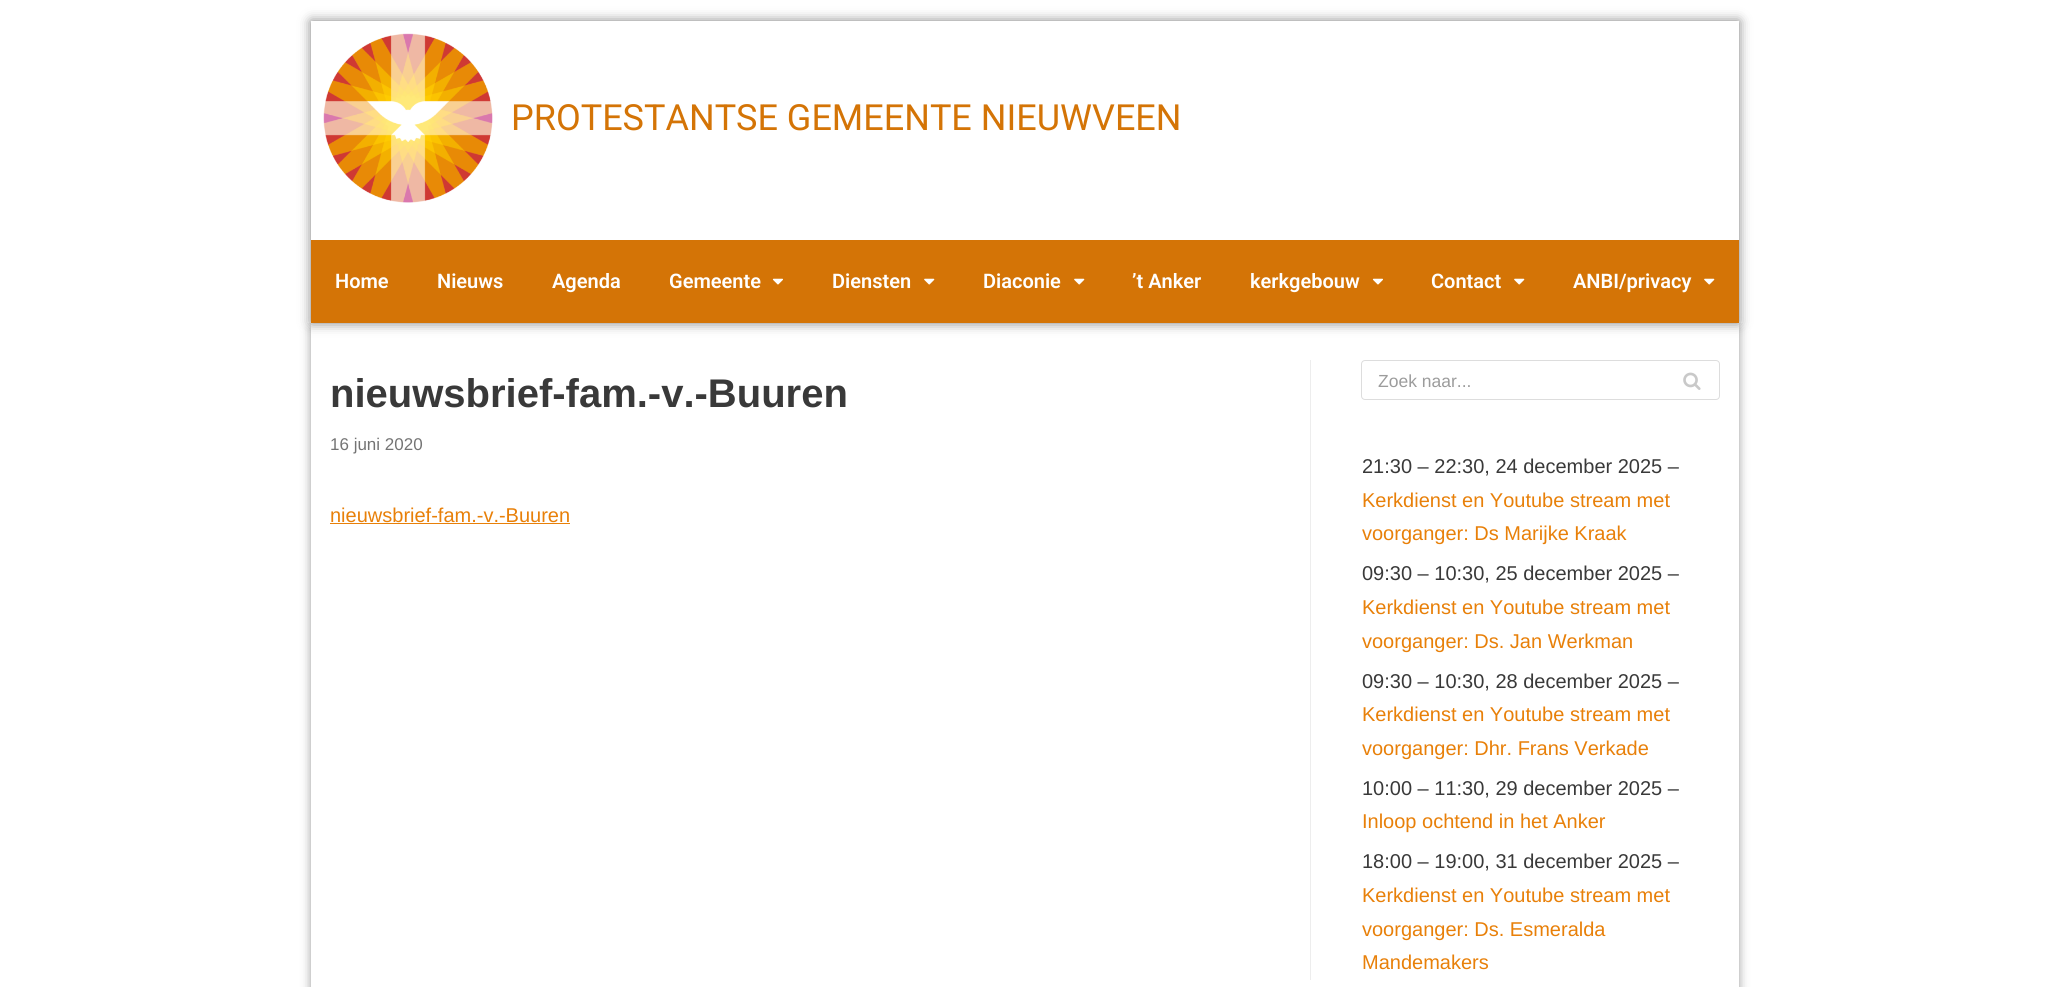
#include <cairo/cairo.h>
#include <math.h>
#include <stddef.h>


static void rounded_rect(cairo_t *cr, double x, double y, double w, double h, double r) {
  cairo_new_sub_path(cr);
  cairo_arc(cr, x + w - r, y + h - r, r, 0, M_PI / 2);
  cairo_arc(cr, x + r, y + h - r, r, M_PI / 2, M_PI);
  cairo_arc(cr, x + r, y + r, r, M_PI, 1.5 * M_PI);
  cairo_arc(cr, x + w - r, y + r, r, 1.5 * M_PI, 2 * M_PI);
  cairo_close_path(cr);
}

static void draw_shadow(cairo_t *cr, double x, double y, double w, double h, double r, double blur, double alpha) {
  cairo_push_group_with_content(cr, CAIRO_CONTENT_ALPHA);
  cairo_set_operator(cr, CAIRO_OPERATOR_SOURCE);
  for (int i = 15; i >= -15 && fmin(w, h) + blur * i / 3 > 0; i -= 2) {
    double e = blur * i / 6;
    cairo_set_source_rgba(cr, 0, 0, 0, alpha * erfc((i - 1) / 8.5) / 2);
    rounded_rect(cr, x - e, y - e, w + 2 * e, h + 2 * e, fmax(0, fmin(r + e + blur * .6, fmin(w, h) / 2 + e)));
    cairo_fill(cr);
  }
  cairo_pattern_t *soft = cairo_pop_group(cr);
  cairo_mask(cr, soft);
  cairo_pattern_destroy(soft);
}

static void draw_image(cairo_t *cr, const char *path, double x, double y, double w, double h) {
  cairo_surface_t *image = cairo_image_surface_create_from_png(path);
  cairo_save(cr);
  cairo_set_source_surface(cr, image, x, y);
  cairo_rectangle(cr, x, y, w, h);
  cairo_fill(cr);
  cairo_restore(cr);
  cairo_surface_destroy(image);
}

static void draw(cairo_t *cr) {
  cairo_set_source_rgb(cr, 1, 1, 1);
  cairo_paint(cr);
  cairo_save(cr);
  cairo_set_fill_rule(cr, CAIRO_FILL_RULE_EVEN_ODD);
  cairo_new_path(cr);
  cairo_move_to(cr, 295, 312);
  cairo_line_to(cr, 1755, 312);
  cairo_line_to(cr, 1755, 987);
  cairo_line_to(cr, 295, 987);
  cairo_close_path(cr);
  cairo_move_to(cr, 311, 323);
  cairo_line_to(cr, 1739, 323);
  cairo_line_to(cr, 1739, 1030);
  cairo_line_to(cr, 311, 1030);
  cairo_close_path(cr);
  cairo_clip(cr);
  cairo_set_source_rgb(cr, 0, 0, 0);
  draw_shadow(cr, 311, 328, 1428, 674, 0, 5, 0.4);
  cairo_restore(cr);
  cairo_set_source_rgb(cr, 1, 1, 1);
  cairo_rectangle(cr, 307, 318, 1436, 5);
  cairo_fill(cr);
  cairo_save(cr);
  cairo_set_fill_rule(cr, CAIRO_FILL_RULE_EVEN_ODD);
  cairo_new_path(cr);
  cairo_move_to(cr, 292, 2);
  cairo_line_to(cr, 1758, 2);
  cairo_line_to(cr, 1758, 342);
  cairo_line_to(cr, 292, 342);
  cairo_close_path(cr);
  cairo_move_to(cr, 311, 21);
  cairo_line_to(cr, 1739, 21);
  cairo_line_to(cr, 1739, 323);
  cairo_line_to(cr, 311, 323);
  cairo_close_path(cr);
  cairo_clip(cr);
  cairo_set_source_rgb(cr, 0, 0, 0);
  draw_shadow(cr, 311, 21, 1428, 302, 0, 6, 0.5);
  cairo_restore(cr);
  draw_image(cr, "images/1.png", 323, 33, 170, 170);
  cairo_set_source_rgb(cr, 212 / 255.0, 116 / 255.0, 6 / 255.0);
  cairo_rectangle(cr, 311, 240, 1428, 83);
  cairo_fill(cr);
  draw_image(cr, "images/2.png", 772, 278, 11, 7);
  draw_image(cr, "images/3.png", 924, 278, 11, 7);
  draw_image(cr, "images/3.png", 1074, 278, 11, 7);
  draw_image(cr, "images/2.png", 1372, 278, 11, 7);
  draw_image(cr, "images/3.png", 1514, 278, 11, 7);
  draw_image(cr, "images/3.png", 1704, 278, 11, 7);
  cairo_set_source_rgb(cr, 232 / 255.0, 128 / 255.0, 9 / 255.0);
  cairo_rectangle(cr, 330, 523, 240, 1);
  cairo_fill(cr);
  cairo_set_source_rgb(cr, 237 / 255.0, 237 / 255.0, 237 / 255.0);
  cairo_rectangle(cr, 1310, 360, 1, 620);
  cairo_fill(cr);
  rounded_rect(cr, 1361.5, 360.5, 358, 39, 3.5);
  cairo_set_source_rgb(cr, 221 / 255.0, 221 / 255.0, 221 / 255.0);
  cairo_set_line_width(cr, 1);
  cairo_stroke(cr);
  draw_image(cr, "images/4.png", 1683, 372, 18, 18);
  cairo_select_font_face(cr, "Roboto", CAIRO_FONT_SLANT_NORMAL, CAIRO_FONT_WEIGHT_NORMAL);
  cairo_set_font_size(cr, 36);
  cairo_set_source_rgb(cr, 212 / 255.0, 116 / 255.0, 6 / 255.0);
  cairo_move_to(cr, 511, 130);
  cairo_show_text(cr, "PROTESTANTSE GEMEENTE NIEUWVEEN");
  cairo_select_font_face(cr, "Roboto SemiBold", CAIRO_FONT_SLANT_NORMAL, CAIRO_FONT_WEIGHT_NORMAL);
  cairo_set_font_size(cr, 20);
  cairo_set_source_rgb(cr, 1, 1, 1);
  cairo_move_to(cr, 335, 288);
  cairo_show_text(cr, "Home");
  cairo_move_to(cr, 437, 288);
  cairo_show_text(cr, "Nieuws");
  cairo_move_to(cr, 552, 288);
  cairo_show_text(cr, "Agenda");
  cairo_move_to(cr, 669, 288);
  cairo_show_text(cr, "Gemeente");
  cairo_move_to(cr, 832, 288);
  cairo_show_text(cr, "Diensten");
  cairo_move_to(cr, 983, 288);
  cairo_show_text(cr, "Diaconie");
  cairo_move_to(cr, 1132, 288);
  cairo_show_text(cr, "’t Anker");
  cairo_move_to(cr, 1250, 288);
  cairo_show_text(cr, "kerkgebouw");
  cairo_move_to(cr, 1431, 288);
  cairo_show_text(cr, "Contact");
  cairo_move_to(cr, 1573, 288);
  cairo_show_text(cr, "ANBI/privacy");
  cairo_select_font_face(cr, "Liberation Sans", CAIRO_FONT_SLANT_NORMAL, CAIRO_FONT_WEIGHT_BOLD);
  cairo_set_font_size(cr, 40);
  cairo_set_source_rgb(cr, 57 / 255.0, 57 / 255.0, 57 / 255.0);
  cairo_move_to(cr, 330, 407);
  cairo_show_text(cr, "nieuwsbrief-fam.-v.-Buuren");
  cairo_select_font_face(cr, "Liberation Sans", CAIRO_FONT_SLANT_NORMAL, CAIRO_FONT_WEIGHT_NORMAL);
  cairo_set_font_size(cr, 17);
  cairo_set_source_rgb(cr, 116 / 255.0, 116 / 255.0, 116 / 255.0);
  cairo_move_to(cr, 330, 450);
  cairo_show_text(cr, "16 juni 2020");
  cairo_set_font_size(cr, 20);
  cairo_set_source_rgb(cr, 232 / 255.0, 128 / 255.0, 9 / 255.0);
  cairo_move_to(cr, 330, 522);
  cairo_show_text(cr, "nieuwsbrief-fam.-v.-Buuren");
  cairo_set_font_size(cr, 17.5);
  cairo_set_source_rgb(cr, 156 / 255.0, 156 / 255.0, 156 / 255.0);
  cairo_move_to(cr, 1378, 387);
  cairo_show_text(cr, "Zoek naar...");
  cairo_set_font_size(cr, 20);
  cairo_set_source_rgb(cr, 57 / 255.0, 57 / 255.0, 57 / 255.0);
  cairo_move_to(cr, 1362, 473);
  cairo_show_text(cr, "21:30 – 22:30, 24 december 2025 –");
  cairo_set_source_rgb(cr, 232 / 255.0, 128 / 255.0, 9 / 255.0);
  cairo_move_to(cr, 1362, 507);
  cairo_show_text(cr, "Kerkdienst en Youtube stream met");
  cairo_move_to(cr, 1362, 540);
  cairo_show_text(cr, "voorganger: Ds Marijke Kraak");
  cairo_set_source_rgb(cr, 57 / 255.0, 57 / 255.0, 57 / 255.0);
  cairo_move_to(cr, 1362, 580);
  cairo_show_text(cr, "09:30 – 10:30, 25 december 2025 –");
  cairo_set_source_rgb(cr, 232 / 255.0, 128 / 255.0, 9 / 255.0);
  cairo_move_to(cr, 1362, 614);
  cairo_show_text(cr, "Kerkdienst en Youtube stream met");
  cairo_move_to(cr, 1362, 648);
  cairo_show_text(cr, "voorganger: Ds. Jan Werkman");
  cairo_set_source_rgb(cr, 57 / 255.0, 57 / 255.0, 57 / 255.0);
  cairo_move_to(cr, 1362, 688);
  cairo_show_text(cr, "09:30 – 10:30, 28 december 2025 –");
  cairo_set_source_rgb(cr, 232 / 255.0, 128 / 255.0, 9 / 255.0);
  cairo_move_to(cr, 1362, 721);
  cairo_show_text(cr, "Kerkdienst en Youtube stream met");
  cairo_move_to(cr, 1362, 755);
  cairo_show_text(cr, "voorganger: Dhr. Frans Verkade");
  cairo_set_source_rgb(cr, 57 / 255.0, 57 / 255.0, 57 / 255.0);
  cairo_move_to(cr, 1362, 795);
  cairo_show_text(cr, "10:00 – 11:30, 29 december 2025 –");
  cairo_set_source_rgb(cr, 232 / 255.0, 128 / 255.0, 9 / 255.0);
  cairo_move_to(cr, 1362, 828);
  cairo_show_text(cr, "Inloop ochtend in het Anker");
  cairo_set_source_rgb(cr, 57 / 255.0, 57 / 255.0, 57 / 255.0);
  cairo_move_to(cr, 1362, 868);
  cairo_show_text(cr, "18:00 – 19:00, 31 december 2025 –");
  cairo_set_source_rgb(cr, 232 / 255.0, 128 / 255.0, 9 / 255.0);
  cairo_move_to(cr, 1362, 902);
  cairo_show_text(cr, "Kerkdienst en Youtube stream met");
  cairo_move_to(cr, 1362, 936);
  cairo_show_text(cr, "voorganger: Ds. Esmeralda");
  cairo_move_to(cr, 1362, 969);
  cairo_show_text(cr, "Mandemakers");
}

int main(void) {
  cairo_surface_t *surface = cairo_image_surface_create(CAIRO_FORMAT_RGB24, 2049, 987);
  cairo_t *cr = cairo_create(surface);
  cairo_font_options_t *options = cairo_font_options_create();
  cairo_font_options_set_hint_metrics(options, CAIRO_HINT_METRICS_OFF);
  cairo_font_options_set_hint_style(options, CAIRO_HINT_STYLE_NONE);
  cairo_set_font_options(cr, options);
  cairo_set_miter_limit(cr, 4);
  draw(cr);
  cairo_surface_write_to_png(surface, "out.png");
  cairo_font_options_destroy(options);
  cairo_destroy(cr);
  cairo_surface_destroy(surface);
  return 0;
}
